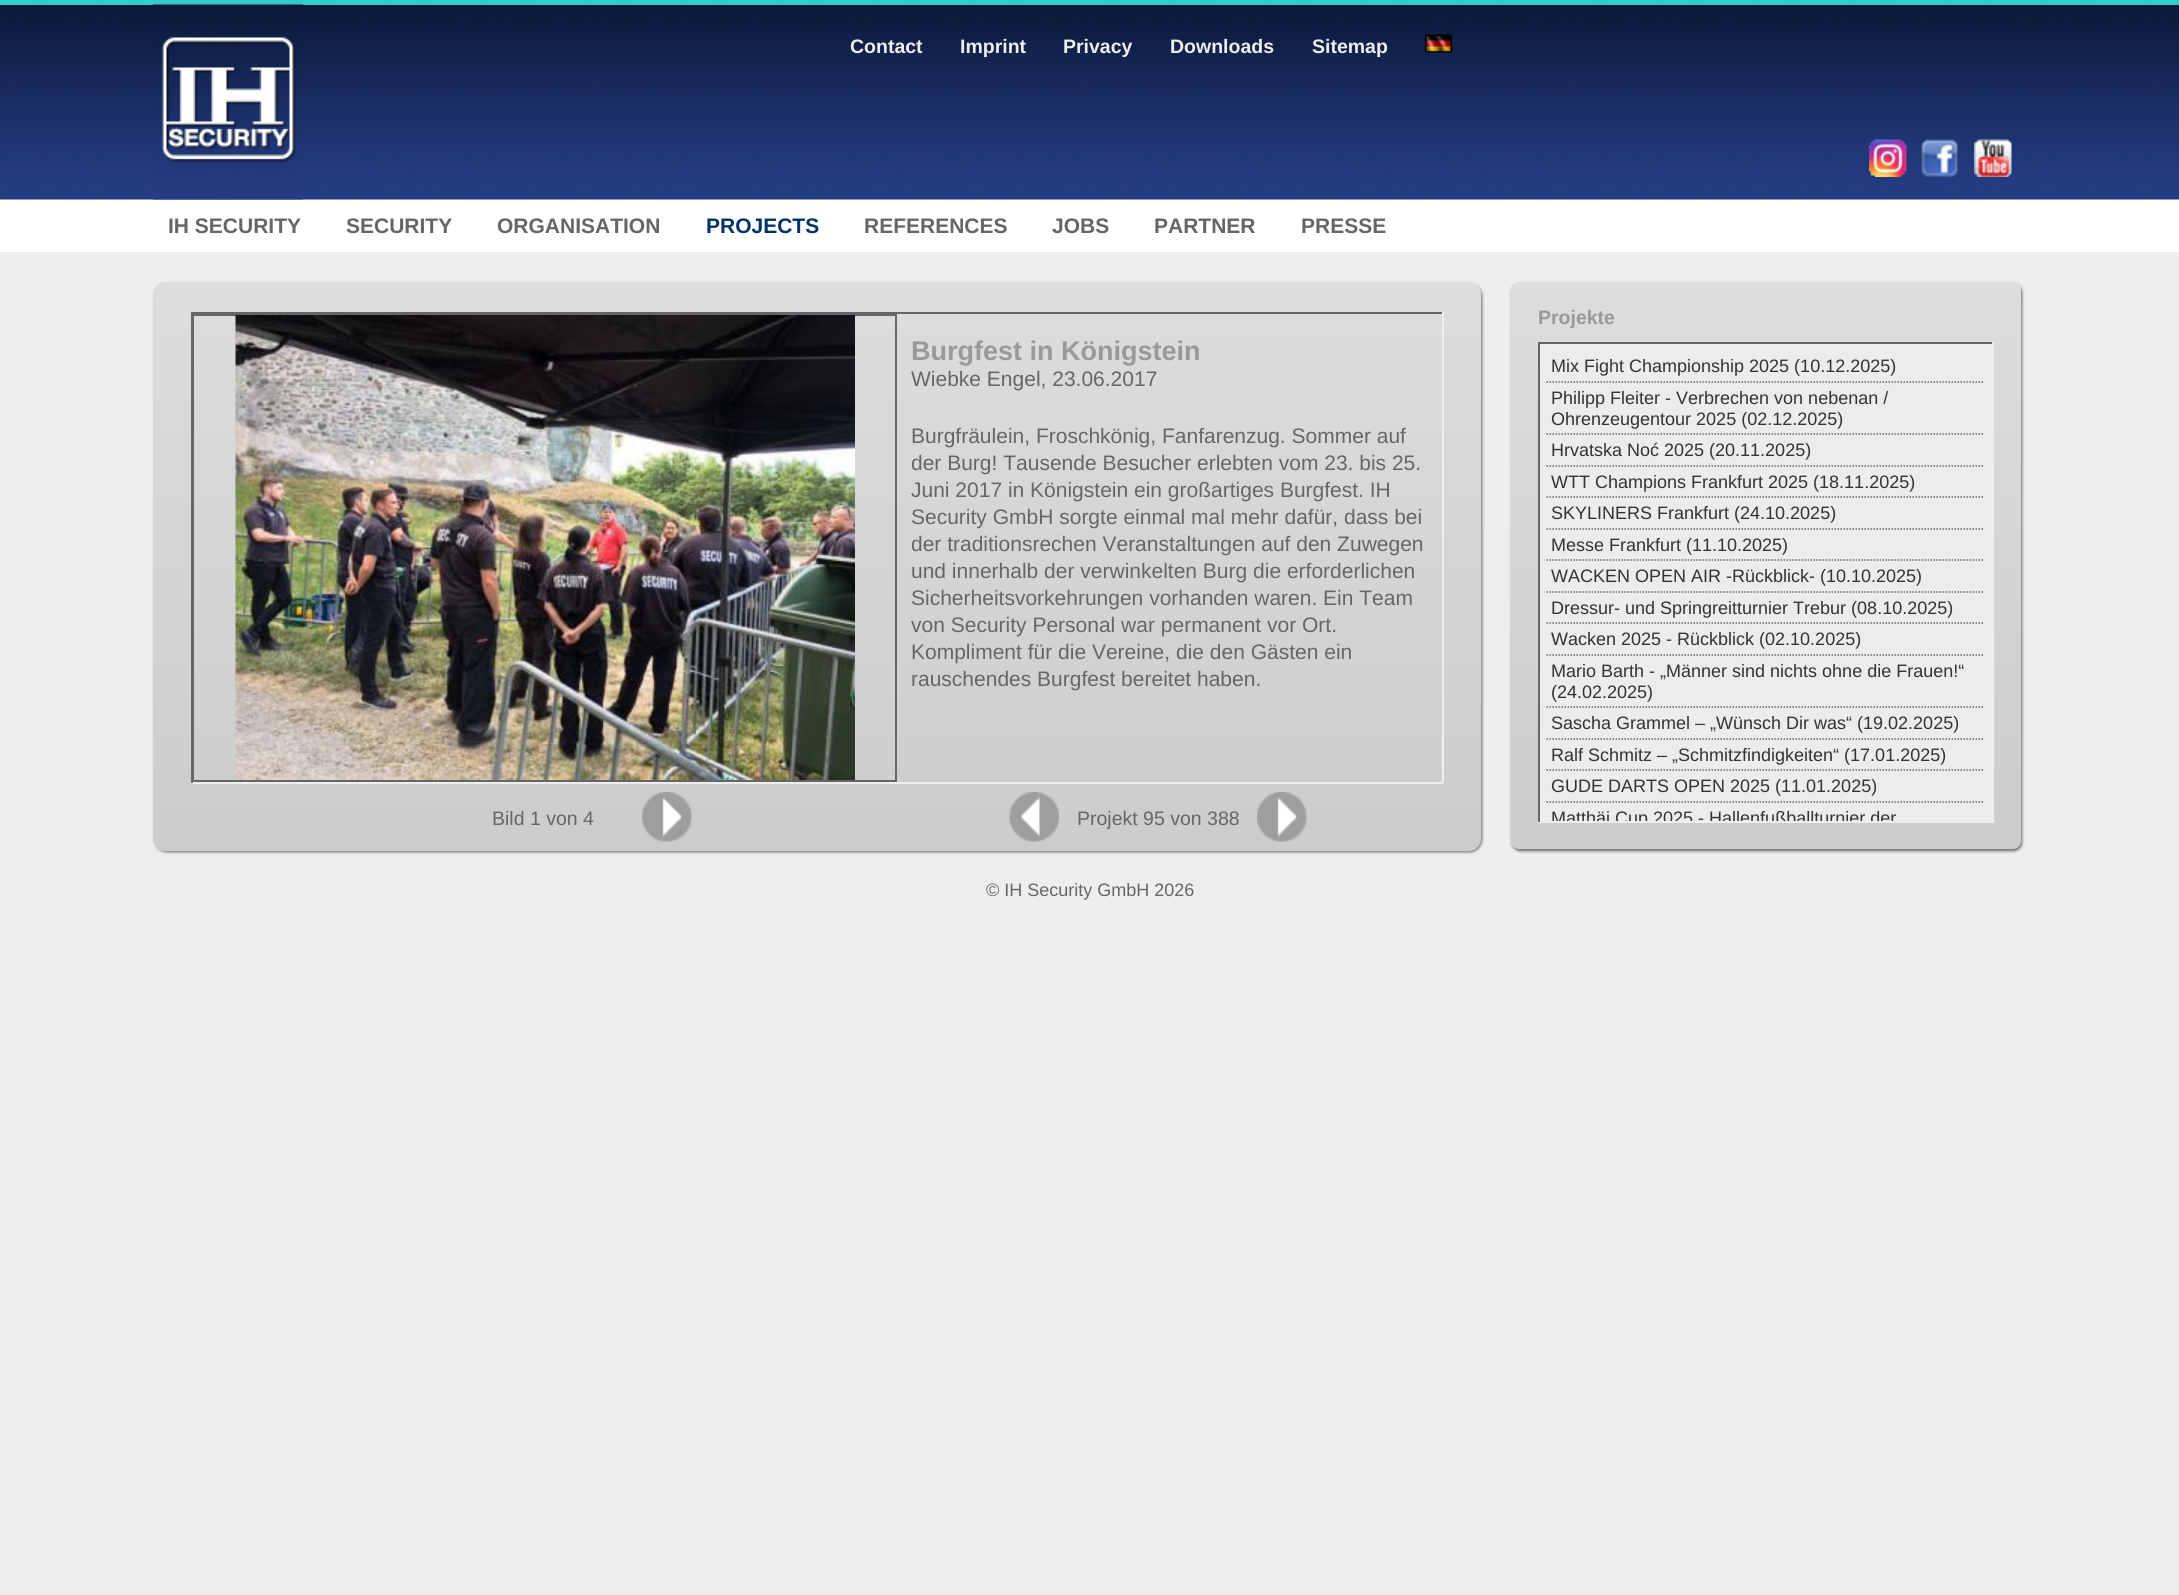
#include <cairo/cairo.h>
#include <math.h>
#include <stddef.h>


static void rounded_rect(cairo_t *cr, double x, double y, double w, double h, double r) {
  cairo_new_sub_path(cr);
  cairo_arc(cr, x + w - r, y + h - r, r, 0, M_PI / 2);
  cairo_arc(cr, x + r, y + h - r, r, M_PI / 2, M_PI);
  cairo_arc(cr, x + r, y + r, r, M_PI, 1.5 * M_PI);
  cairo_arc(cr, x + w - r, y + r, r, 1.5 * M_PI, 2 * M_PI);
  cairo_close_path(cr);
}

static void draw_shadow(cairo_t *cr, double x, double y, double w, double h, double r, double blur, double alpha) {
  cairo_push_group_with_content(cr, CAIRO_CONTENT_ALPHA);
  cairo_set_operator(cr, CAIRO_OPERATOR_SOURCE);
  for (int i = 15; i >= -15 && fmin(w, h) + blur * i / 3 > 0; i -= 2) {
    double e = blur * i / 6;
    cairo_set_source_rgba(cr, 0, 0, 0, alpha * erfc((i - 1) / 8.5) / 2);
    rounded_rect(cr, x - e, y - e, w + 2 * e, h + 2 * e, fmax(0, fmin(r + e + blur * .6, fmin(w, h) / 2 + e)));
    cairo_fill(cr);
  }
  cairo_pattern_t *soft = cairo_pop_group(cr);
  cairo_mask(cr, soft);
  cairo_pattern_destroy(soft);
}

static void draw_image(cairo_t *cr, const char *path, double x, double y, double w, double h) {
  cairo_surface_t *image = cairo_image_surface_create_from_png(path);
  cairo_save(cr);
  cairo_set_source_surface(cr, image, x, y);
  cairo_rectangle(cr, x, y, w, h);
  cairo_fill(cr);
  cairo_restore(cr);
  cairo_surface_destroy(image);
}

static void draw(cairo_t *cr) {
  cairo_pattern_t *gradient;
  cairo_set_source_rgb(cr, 238 / 255.0, 238 / 255.0, 238 / 255.0);
  cairo_paint(cr);
  draw_image(cr, "images/1.png", 0, 5, 2179, 247);
  cairo_set_source_rgb(cr, 51 / 255.0, 204 / 255.0, 204 / 255.0);
  cairo_rectangle(cr, 0, 0, 2179, 5);
  cairo_fill(cr);
  draw_image(cr, "images/2.png", 153, 4, 150, 196);
  draw_image(cr, "images/3.png", 1425, 34, 27, 19);
  draw_image(cr, "images/4.png", 1869, 139, 38, 38);
  draw_image(cr, "images/5.png", 1921, 139, 37, 38);
  draw_image(cr, "images/6.png", 1974, 139, 38, 38);
  cairo_set_source_rgb(cr, 102 / 255.0, 102 / 255.0, 102 / 255.0);
  draw_shadow(cr, 155, 284, 1327, 568, 12, 1.5, 1);
  gradient = cairo_pattern_create_linear(817, 282, 817, 851);
  cairo_pattern_add_color_stop_rgba(gradient, 0, 221 / 255.0, 221 / 255.0, 221 / 255.0, 1);
  cairo_pattern_add_color_stop_rgba(gradient, 1, 204 / 255.0, 204 / 255.0, 204 / 255.0, 1);
  cairo_set_source(cr, gradient);
  cairo_pattern_destroy(gradient);
  rounded_rect(cr, 153, 282, 1328, 569, 12);
  cairo_fill(cr);
  cairo_set_source_rgb(cr, 102 / 255.0, 102 / 255.0, 102 / 255.0);
  cairo_rectangle(cr, 191, 312, 1252, 2);
  cairo_fill(cr);
  cairo_set_source_rgb(cr, 238 / 255.0, 238 / 255.0, 238 / 255.0);
  cairo_rectangle(cr, 1442, 312, 2, 471);
  cairo_fill(cr);
  cairo_rectangle(cr, 191, 782, 1252, 2);
  cairo_fill(cr);
  cairo_set_source_rgb(cr, 102 / 255.0, 102 / 255.0, 102 / 255.0);
  cairo_rectangle(cr, 191, 312, 2, 471);
  cairo_fill(cr);
  cairo_rectangle(cr, 193, 315, 703, 466);
  cairo_stroke(cr);
  draw_image(cr, "images/7.png", 235, 315, 620, 465);
  draw_image(cr, "images/8.png", 642, 792, 50, 50);
  draw_image(cr, "images/9.png", 1009, 792, 50, 50);
  draw_image(cr, "images/10.png", 1257, 792, 50, 50);
  cairo_set_source_rgb(cr, 102 / 255.0, 102 / 255.0, 102 / 255.0);
  draw_shadow(cr, 1512, 284, 510, 567, 8, 1.5, 1);
  gradient = cairo_pattern_create_linear(1766, 282, 1766, 849);
  cairo_pattern_add_color_stop_rgba(gradient, 0, 221 / 255.0, 221 / 255.0, 221 / 255.0, 1);
  cairo_pattern_add_color_stop_rgba(gradient, 1, 204 / 255.0, 204 / 255.0, 204 / 255.0, 1);
  cairo_set_source(cr, gradient);
  cairo_pattern_destroy(gradient);
  rounded_rect(cr, 1511, 282, 510, 567, 8);
  cairo_fill(cr);
  cairo_set_source_rgb(cr, 236 / 255.0, 236 / 255.0, 236 / 255.0);
  cairo_rectangle(cr, 1540, 344, 452, 477);
  cairo_fill(cr);
  cairo_set_source_rgb(cr, 102 / 255.0, 102 / 255.0, 102 / 255.0);
  cairo_rectangle(cr, 1538, 342, 456, 2);
  cairo_fill(cr);
  cairo_set_source_rgb(cr, 238 / 255.0, 238 / 255.0, 238 / 255.0);
  cairo_rectangle(cr, 1992, 342, 2, 480);
  cairo_fill(cr);
  cairo_rectangle(cr, 1538, 821, 456, 2);
  cairo_fill(cr);
  cairo_set_source_rgb(cr, 102 / 255.0, 102 / 255.0, 102 / 255.0);
  cairo_rectangle(cr, 1538, 342, 2, 480);
  cairo_fill(cr);
  cairo_new_path(cr);
  cairo_move_to(cr, 1546.5, 382);
  cairo_line_to(cr, 1984.5, 382);
  cairo_set_line_width(cr, 1.5);
  cairo_set_dash(cr, (double[]){1.5, 1.5}, 2, 0);
  cairo_stroke(cr);
  cairo_new_path(cr);
  cairo_move_to(cr, 1546.5, 434);
  cairo_line_to(cr, 1984.5, 434);
  cairo_stroke(cr);
  cairo_new_path(cr);
  cairo_move_to(cr, 1546.5, 466);
  cairo_line_to(cr, 1984.5, 466);
  cairo_stroke(cr);
  cairo_new_path(cr);
  cairo_move_to(cr, 1546.5, 497);
  cairo_line_to(cr, 1984.5, 497);
  cairo_stroke(cr);
  cairo_new_path(cr);
  cairo_move_to(cr, 1546.5, 529);
  cairo_line_to(cr, 1984.5, 529);
  cairo_stroke(cr);
  cairo_new_path(cr);
  cairo_move_to(cr, 1546.5, 560);
  cairo_line_to(cr, 1984.5, 560);
  cairo_stroke(cr);
  cairo_new_path(cr);
  cairo_move_to(cr, 1546.5, 592);
  cairo_line_to(cr, 1984.5, 592);
  cairo_stroke(cr);
  cairo_new_path(cr);
  cairo_move_to(cr, 1546.5, 623);
  cairo_line_to(cr, 1984.5, 623);
  cairo_stroke(cr);
  cairo_new_path(cr);
  cairo_move_to(cr, 1546.5, 655);
  cairo_line_to(cr, 1984.5, 655);
  cairo_stroke(cr);
  cairo_new_path(cr);
  cairo_move_to(cr, 1546.5, 707);
  cairo_line_to(cr, 1984.5, 707);
  cairo_stroke(cr);
  cairo_new_path(cr);
  cairo_move_to(cr, 1546.5, 739);
  cairo_line_to(cr, 1984.5, 739);
  cairo_stroke(cr);
  cairo_new_path(cr);
  cairo_move_to(cr, 1546.5, 770);
  cairo_line_to(cr, 1984.5, 770);
  cairo_stroke(cr);
  cairo_new_path(cr);
  cairo_move_to(cr, 1546.5, 802);
  cairo_line_to(cr, 1984.5, 802);
  cairo_stroke(cr);
  cairo_select_font_face(cr, "Liberation Sans", CAIRO_FONT_SLANT_NORMAL, CAIRO_FONT_WEIGHT_BOLD);
  cairo_set_font_size(cr, 19.5);
  cairo_set_source_rgb(cr, 238 / 255.0, 238 / 255.0, 238 / 255.0);
  cairo_move_to(cr, 850, 53);
  cairo_show_text(cr, "Contact");
  cairo_move_to(cr, 960, 53);
  cairo_show_text(cr, "Imprint");
  cairo_move_to(cr, 1063, 53);
  cairo_show_text(cr, "Privacy");
  cairo_move_to(cr, 1170, 53);
  cairo_show_text(cr, "Downloads");
  cairo_move_to(cr, 1312, 53);
  cairo_show_text(cr, "Sitemap");
  cairo_set_font_size(cr, 21);
  cairo_set_source_rgb(cr, 102 / 255.0, 102 / 255.0, 102 / 255.0);
  cairo_move_to(cr, 168, 233);
  cairo_show_text(cr, "IH SECURITY");
  cairo_move_to(cr, 346, 233);
  cairo_show_text(cr, "SECURITY");
  cairo_move_to(cr, 497, 233);
  cairo_show_text(cr, "ORGANISATION");
  cairo_set_source_rgb(cr, 0, 51 / 255.0, 102 / 255.0);
  cairo_move_to(cr, 706, 233);
  cairo_show_text(cr, "PROJECTS");
  cairo_set_source_rgb(cr, 102 / 255.0, 102 / 255.0, 102 / 255.0);
  cairo_move_to(cr, 864, 233);
  cairo_show_text(cr, "REFERENCES");
  cairo_move_to(cr, 1052, 233);
  cairo_show_text(cr, "JOBS");
  cairo_move_to(cr, 1154, 233);
  cairo_show_text(cr, "PARTNER");
  cairo_move_to(cr, 1301, 233);
  cairo_show_text(cr, "PRESSE");
  cairo_set_font_size(cr, 27);
  cairo_set_source_rgb(cr, 153 / 255.0, 153 / 255.0, 153 / 255.0);
  cairo_move_to(cr, 911, 360);
  cairo_show_text(cr, "Burgfest in Königstein");
  cairo_select_font_face(cr, "Liberation Sans", CAIRO_FONT_SLANT_NORMAL, CAIRO_FONT_WEIGHT_NORMAL);
  cairo_set_font_size(cr, 21);
  cairo_set_source_rgb(cr, 102 / 255.0, 102 / 255.0, 102 / 255.0);
  cairo_move_to(cr, 911, 386);
  cairo_show_text(cr, "Wiebke Engel, 23.06.2017");
  cairo_move_to(cr, 911, 443);
  cairo_show_text(cr, "Burgfräulein, Froschkönig, Fanfarenzug. Sommer auf");
  cairo_move_to(cr, 911, 470);
  cairo_show_text(cr, "der Burg! Tausende Besucher erlebten vom 23. bis 25.");
  cairo_move_to(cr, 911, 497);
  cairo_show_text(cr, "Juni 2017 in Königstein ein großartiges Burgfest. IH");
  cairo_move_to(cr, 911, 524);
  cairo_show_text(cr, "Security GmbH sorgte einmal mal mehr dafür, dass bei");
  cairo_move_to(cr, 911, 551);
  cairo_show_text(cr, "der traditionsrechen Veranstaltungen auf den Zuwegen");
  cairo_move_to(cr, 911, 578);
  cairo_show_text(cr, "und innerhalb der verwinkelten Burg die erforderlichen");
  cairo_move_to(cr, 911, 605);
  cairo_show_text(cr, "Sicherheitsvorkehrungen vorhanden waren. Ein Team");
  cairo_move_to(cr, 911, 632);
  cairo_show_text(cr, "von Security Personal war permanent vor Ort.");
  cairo_move_to(cr, 911, 659);
  cairo_show_text(cr, "Kompliment für die Vereine, die den Gästen ein");
  cairo_move_to(cr, 911, 686);
  cairo_show_text(cr, "rauschendes Burgfest bereitet haben.");
  cairo_set_font_size(cr, 19.5);
  cairo_move_to(cr, 492, 825);
  cairo_show_text(cr, "Bild 1 von 4");
  cairo_move_to(cr, 1077, 825);
  cairo_show_text(cr, "Projekt 95 von 388");
  cairo_select_font_face(cr, "Liberation Sans", CAIRO_FONT_SLANT_NORMAL, CAIRO_FONT_WEIGHT_BOLD);
  cairo_set_source_rgb(cr, 153 / 255.0, 153 / 255.0, 153 / 255.0);
  cairo_move_to(cr, 1538, 324);
  cairo_show_text(cr, "Projekte");
  cairo_select_font_face(cr, "Liberation Sans", CAIRO_FONT_SLANT_NORMAL, CAIRO_FONT_WEIGHT_NORMAL);
  cairo_set_font_size(cr, 18);
  cairo_set_source_rgb(cr, 51 / 255.0, 51 / 255.0, 51 / 255.0);
  cairo_move_to(cr, 1551, 372);
  cairo_show_text(cr, "Mix Fight Championship 2025 (10.12.2025)");
  cairo_move_to(cr, 1551, 404);
  cairo_show_text(cr, "Philipp Fleiter - Verbrechen von nebenan /");
  cairo_move_to(cr, 1551, 425);
  cairo_show_text(cr, "Ohrenzeugentour 2025 (02.12.2025)");
  cairo_move_to(cr, 1551, 456);
  cairo_show_text(cr, "Hrvatska Noć 2025 (20.11.2025)");
  cairo_move_to(cr, 1551, 488);
  cairo_show_text(cr, "WTT Champions Frankfurt 2025 (18.11.2025)");
  cairo_move_to(cr, 1551, 519);
  cairo_show_text(cr, "SKYLINERS Frankfurt (24.10.2025)");
  cairo_move_to(cr, 1551, 551);
  cairo_show_text(cr, "Messe Frankfurt (11.10.2025)");
  cairo_move_to(cr, 1551, 582);
  cairo_show_text(cr, "WACKEN OPEN AIR -Rückblick- (10.10.2025)");
  cairo_move_to(cr, 1551, 614);
  cairo_show_text(cr, "Dressur- und Springreitturnier Trebur (08.10.2025)");
  cairo_move_to(cr, 1551, 645);
  cairo_show_text(cr, "Wacken 2025 - Rückblick (02.10.2025)");
  cairo_move_to(cr, 1551, 677);
  cairo_show_text(cr, "Mario Barth - „Männer sind nichts ohne die Frauen!“");
  cairo_move_to(cr, 1551, 698);
  cairo_show_text(cr, "(24.02.2025)");
  cairo_move_to(cr, 1551, 729);
  cairo_show_text(cr, "Sascha Grammel – „Wünsch Dir was“ (19.02.2025)");
  cairo_move_to(cr, 1551, 761);
  cairo_show_text(cr, "Ralf Schmitz – „Schmitzfindigkeiten“ (17.01.2025)");
  cairo_move_to(cr, 1551, 792);
  cairo_show_text(cr, "GUDE DARTS OPEN 2025 (11.01.2025)");
  cairo_save(cr);
  cairo_rectangle(cr, 1539, 344, 453, 477);
  cairo_clip(cr);
  cairo_move_to(cr, 1551, 824);
  cairo_show_text(cr, "Matthäi Cup 2025 - Hallenfußballturnier der");
  cairo_restore(cr);
  cairo_set_source_rgb(cr, 102 / 255.0, 102 / 255.0, 102 / 255.0);
  cairo_move_to(cr, 986, 896);
  cairo_show_text(cr, "© IH Security GmbH 2026");
}

int main(void) {
  cairo_surface_t *surface = cairo_image_surface_create(CAIRO_FORMAT_RGB24, 2179, 1595);
  cairo_t *cr = cairo_create(surface);
  cairo_font_options_t *options = cairo_font_options_create();
  cairo_font_options_set_hint_metrics(options, CAIRO_HINT_METRICS_OFF);
  cairo_font_options_set_hint_style(options, CAIRO_HINT_STYLE_NONE);
  cairo_set_font_options(cr, options);
  cairo_set_miter_limit(cr, 4);
  draw(cr);
  cairo_surface_write_to_png(surface, "out.png");
  cairo_font_options_destroy(options);
  cairo_destroy(cr);
  cairo_surface_destroy(surface);
  return 0;
}
